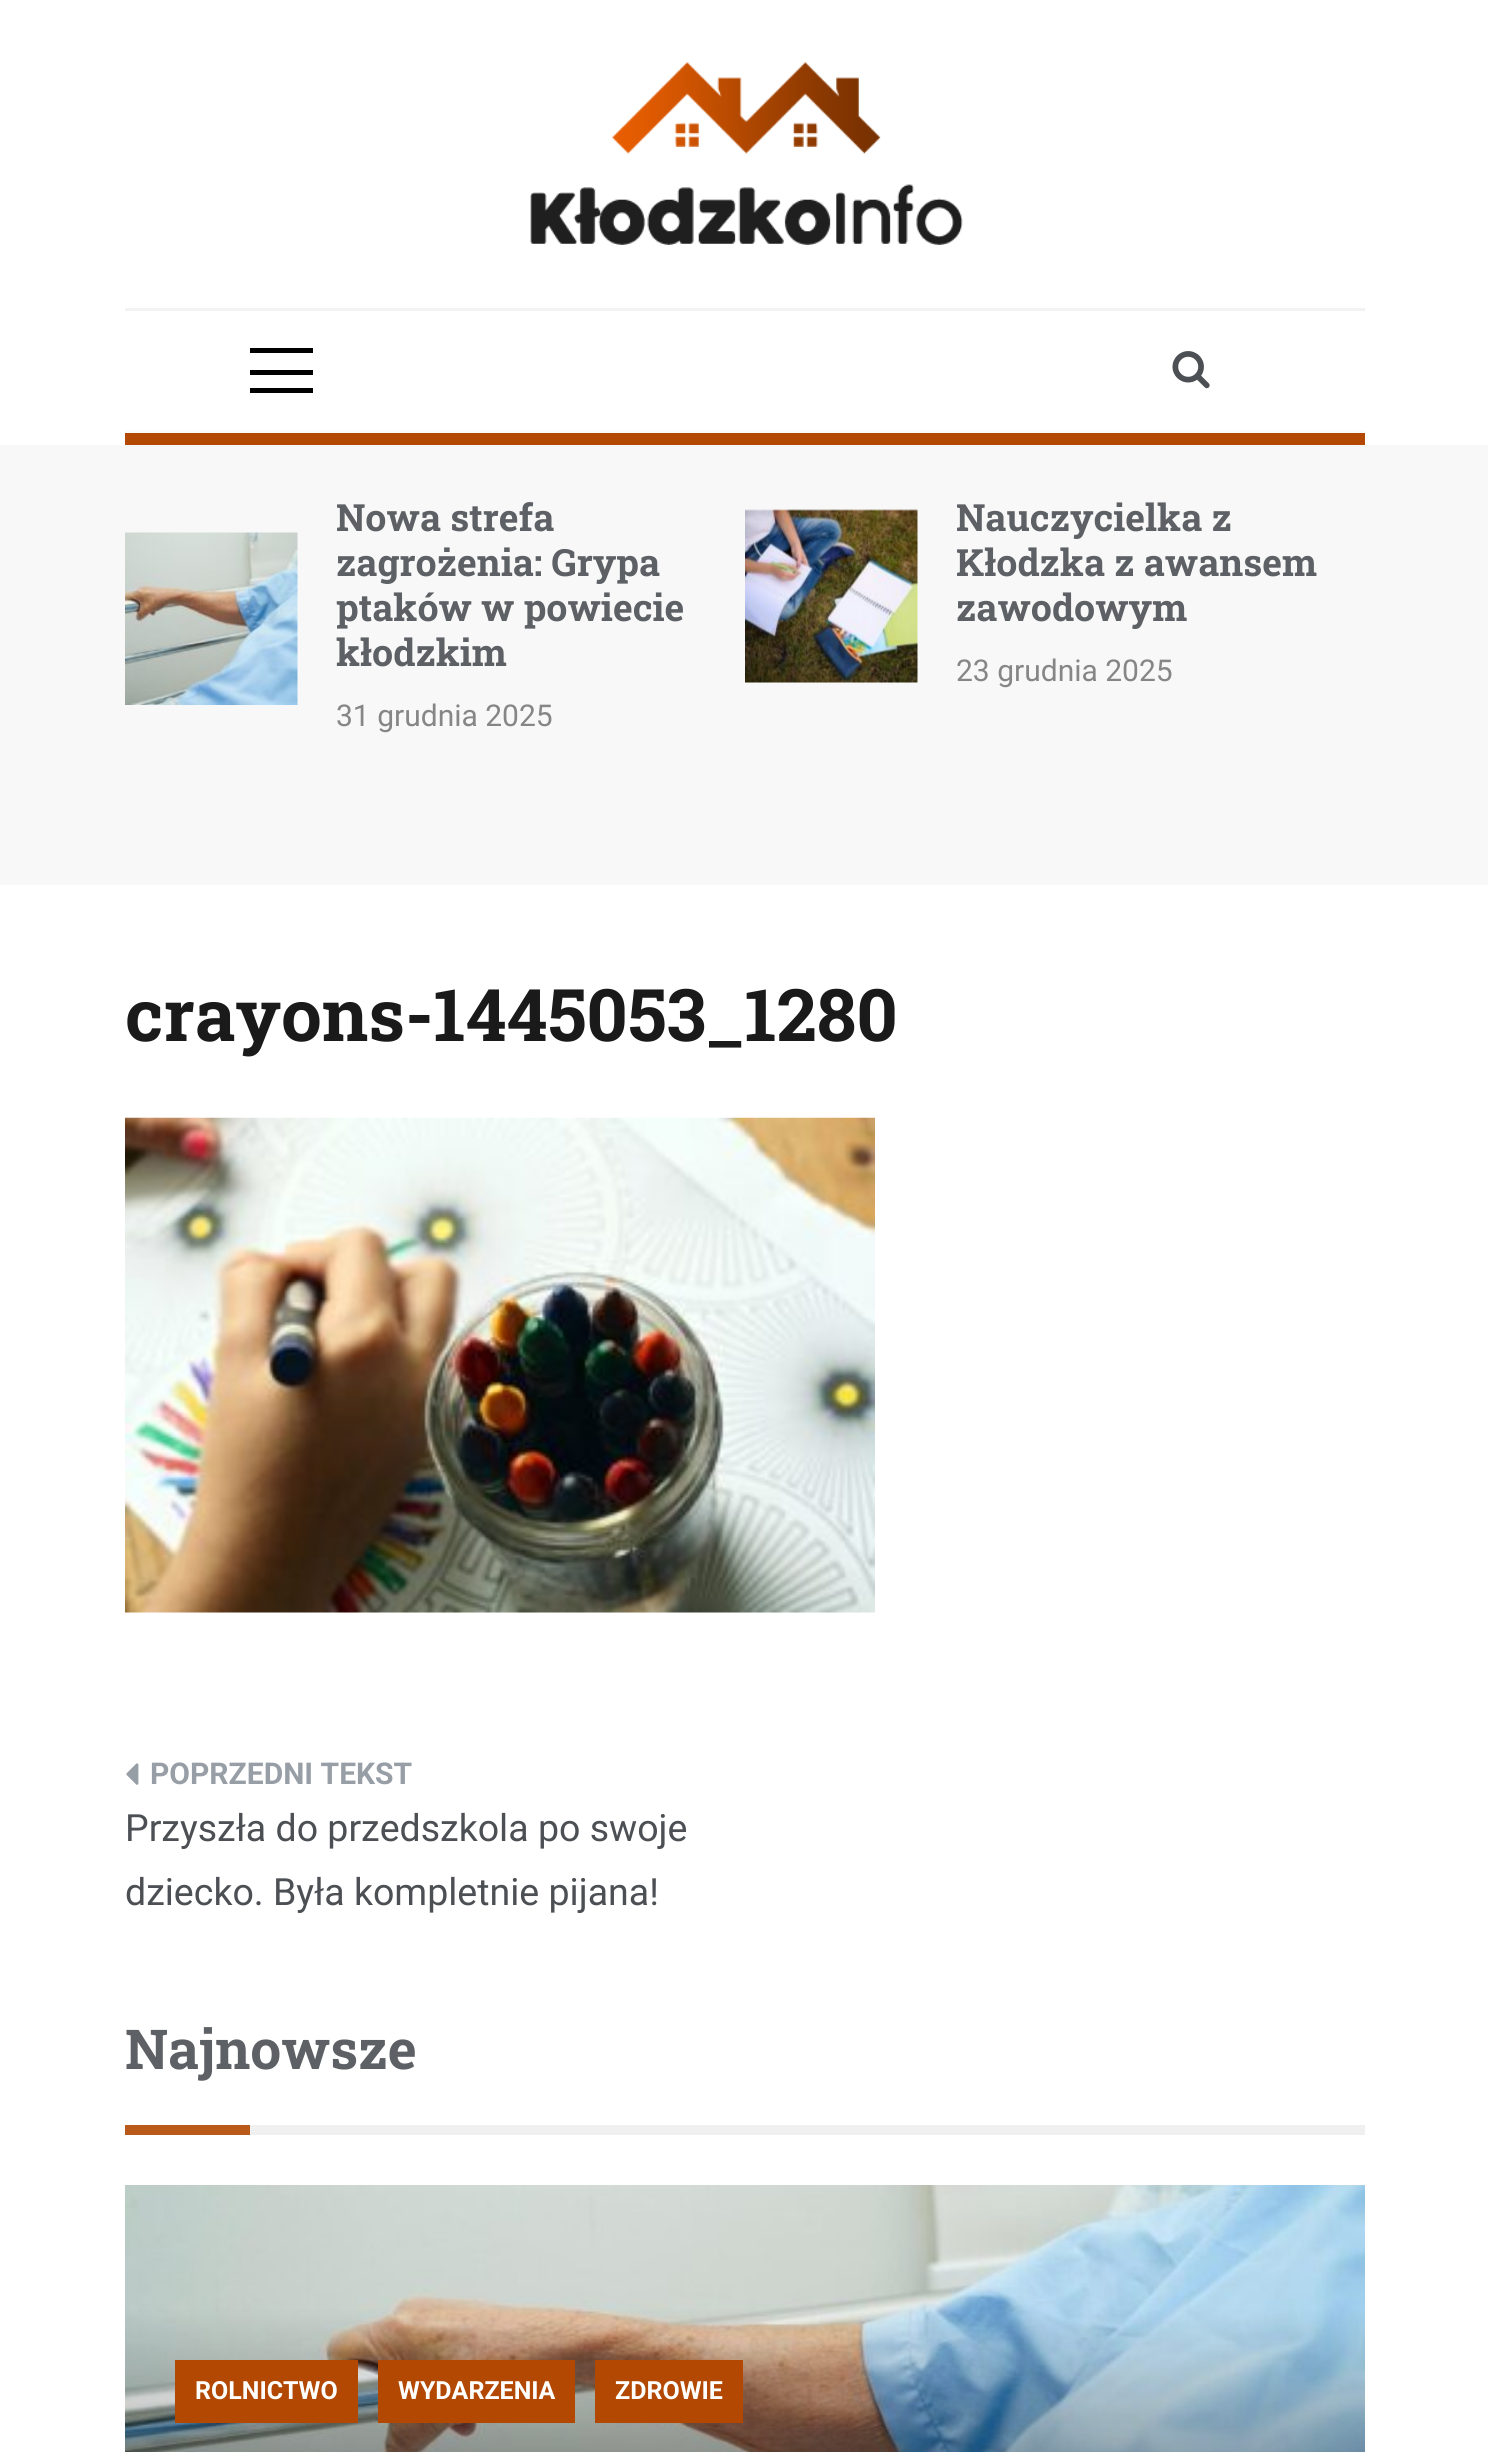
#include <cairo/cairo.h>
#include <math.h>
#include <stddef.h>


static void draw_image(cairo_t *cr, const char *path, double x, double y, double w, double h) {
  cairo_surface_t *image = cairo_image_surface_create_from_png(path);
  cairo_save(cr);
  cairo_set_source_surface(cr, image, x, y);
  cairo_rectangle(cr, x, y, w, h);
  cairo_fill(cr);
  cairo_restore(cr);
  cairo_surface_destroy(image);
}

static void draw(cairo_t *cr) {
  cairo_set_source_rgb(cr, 1, 1, 1);
  cairo_paint(cr);
  cairo_set_source_rgb(cr, 178 / 255.0, 72 / 255.0, 1 / 255.0);
  cairo_rectangle(cr, 125, 433, 1240, 12);
  cairo_fill(cr);
  cairo_set_source_rgb(cr, 250 / 255.0, 250 / 255.0, 250 / 255.0);
  cairo_rectangle(cr, 125, 430, 1240, 3);
  cairo_fill(cr);
  cairo_set_source_rgb(cr, 242 / 255.0, 242 / 255.0, 242 / 255.0);
  cairo_rectangle(cr, 125, 308, 1240, 3);
  cairo_fill(cr);
  draw_image(cr, "images/1.png", 530, 62, 433, 183);
  cairo_set_source_rgb(cr, 0, 0, 0);
  cairo_rectangle(cr, 250, 348, 63, 5);
  cairo_fill(cr);
  cairo_rectangle(cr, 250, 370, 63, 5);
  cairo_fill(cr);
  cairo_rectangle(cr, 250, 388, 63, 5);
  cairo_fill(cr);
  draw_image(cr, "images/2.png", 1172, 351, 38, 38);
  cairo_set_source_rgb(cr, 248 / 255.0, 248 / 255.0, 248 / 255.0);
  cairo_rectangle(cr, 0, 445, 1488, 440);
  cairo_fill(cr);
  draw_image(cr, "images/3.png", 125, 532, 173, 173);
  draw_image(cr, "images/4.png", 745, 509, 173, 174);
  draw_image(cr, "images/5.png", 125, 1117, 750, 496);
  draw_image(cr, "images/6.png", 126, 1763, 13, 22);
  cairo_set_source_rgb(cr, 186 / 255.0, 90 / 255.0, 26 / 255.0);
  cairo_rectangle(cr, 125, 2125, 125, 10);
  cairo_fill(cr);
  cairo_set_source_rgb(cr, 240 / 255.0, 240 / 255.0, 240 / 255.0);
  cairo_rectangle(cr, 250, 2125, 1115, 10);
  cairo_fill(cr);
  draw_image(cr, "images/7.png", 125, 2185, 1240, 267);
  cairo_set_source_rgb(cr, 178 / 255.0, 72 / 255.0, 1 / 255.0);
  cairo_rectangle(cr, 175, 2360, 183, 63);
  cairo_fill(cr);
  cairo_rectangle(cr, 378, 2360, 197, 63);
  cairo_fill(cr);
  cairo_rectangle(cr, 595, 2360, 148, 63);
  cairo_fill(cr);
  cairo_select_font_face(cr, "Roboto Slab", CAIRO_FONT_SLANT_NORMAL, CAIRO_FONT_WEIGHT_BOLD);
  cairo_set_font_size(cr, 37.5);
  cairo_set_source_rgb(cr, 93 / 255.0, 96 / 255.0, 100 / 255.0);
  cairo_move_to(cr, 336, 531);
  cairo_show_text(cr, "Nowa strefa");
  cairo_move_to(cr, 336, 576);
  cairo_show_text(cr, "zagrożenia: Grypa");
  cairo_move_to(cr, 336, 621);
  cairo_show_text(cr, "ptaków w powiecie");
  cairo_move_to(cr, 336, 666);
  cairo_show_text(cr, "kłodzkim");
  cairo_select_font_face(cr, "Roboto", CAIRO_FONT_SLANT_NORMAL, CAIRO_FONT_WEIGHT_NORMAL);
  cairo_set_font_size(cr, 30);
  cairo_set_source_rgb(cr, 134 / 255.0, 134 / 255.0, 134 / 255.0);
  cairo_move_to(cr, 336, 726);
  cairo_show_text(cr, "31 grudnia 2025");
  cairo_select_font_face(cr, "Roboto Slab", CAIRO_FONT_SLANT_NORMAL, CAIRO_FONT_WEIGHT_BOLD);
  cairo_set_font_size(cr, 37.5);
  cairo_set_source_rgb(cr, 93 / 255.0, 96 / 255.0, 100 / 255.0);
  cairo_move_to(cr, 956, 531);
  cairo_show_text(cr, "Nauczycielka z");
  cairo_move_to(cr, 956, 576);
  cairo_show_text(cr, "Kłodzka z awansem");
  cairo_move_to(cr, 956, 621);
  cairo_show_text(cr, "zawodowym");
  cairo_select_font_face(cr, "Roboto", CAIRO_FONT_SLANT_NORMAL, CAIRO_FONT_WEIGHT_NORMAL);
  cairo_set_font_size(cr, 30);
  cairo_set_source_rgb(cr, 134 / 255.0, 134 / 255.0, 134 / 255.0);
  cairo_move_to(cr, 956, 681);
  cairo_show_text(cr, "23 grudnia 2025");
  cairo_select_font_face(cr, "Roboto Slab", CAIRO_FONT_SLANT_NORMAL, CAIRO_FONT_WEIGHT_BOLD);
  cairo_set_font_size(cr, 72.5);
  cairo_set_source_rgb(cr, 26 / 255.0, 26 / 255.0, 26 / 255.0);
  cairo_move_to(cr, 125, 1041);
  cairo_show_text(cr, "crayons-1445053_1280");
  cairo_select_font_face(cr, "Roboto", CAIRO_FONT_SLANT_NORMAL, CAIRO_FONT_WEIGHT_BOLD);
  cairo_set_font_size(cr, 30);
  cairo_set_source_rgb(cr, 152 / 255.0, 158 / 255.0, 166 / 255.0);
  cairo_move_to(cr, 150, 1784);
  cairo_show_text(cr, "POPRZEDNI TEKST");
  cairo_select_font_face(cr, "Roboto", CAIRO_FONT_SLANT_NORMAL, CAIRO_FONT_WEIGHT_NORMAL);
  cairo_set_font_size(cr, 37.5);
  cairo_set_source_rgb(cr, 76 / 255.0, 79 / 255.0, 83 / 255.0);
  cairo_move_to(cr, 125, 1841);
  cairo_show_text(cr, "Przyszła do przedszkola po swoje");
  cairo_move_to(cr, 125, 1905);
  cairo_show_text(cr, "dziecko. Była kompletnie pijana!");
  cairo_select_font_face(cr, "Roboto Slab", CAIRO_FONT_SLANT_NORMAL, CAIRO_FONT_WEIGHT_BOLD);
  cairo_set_font_size(cr, 55);
  cairo_set_source_rgb(cr, 93 / 255.0, 96 / 255.0, 100 / 255.0);
  cairo_move_to(cr, 125, 2069);
  cairo_show_text(cr, "Najnowsze");
  cairo_select_font_face(cr, "Roboto", CAIRO_FONT_SLANT_NORMAL, CAIRO_FONT_WEIGHT_BOLD);
  cairo_set_font_size(cr, 25);
  cairo_set_source_rgb(cr, 1, 1, 1);
  cairo_move_to(cr, 195, 2399);
  cairo_show_text(cr, "ROLNICTWO");
  cairo_move_to(cr, 398, 2399);
  cairo_show_text(cr, "WYDARZENIA");
  cairo_move_to(cr, 615, 2399);
  cairo_show_text(cr, "ZDROWIE");
}

int main(void) {
  cairo_surface_t *surface = cairo_image_surface_create(CAIRO_FORMAT_RGB24, 1488, 2452);
  cairo_t *cr = cairo_create(surface);
  cairo_font_options_t *options = cairo_font_options_create();
  cairo_font_options_set_hint_metrics(options, CAIRO_HINT_METRICS_OFF);
  cairo_font_options_set_hint_style(options, CAIRO_HINT_STYLE_NONE);
  cairo_set_font_options(cr, options);
  cairo_set_miter_limit(cr, 4);
  draw(cr);
  cairo_surface_write_to_png(surface, "out.png");
  cairo_font_options_destroy(options);
  cairo_destroy(cr);
  cairo_surface_destroy(surface);
  return 0;
}
